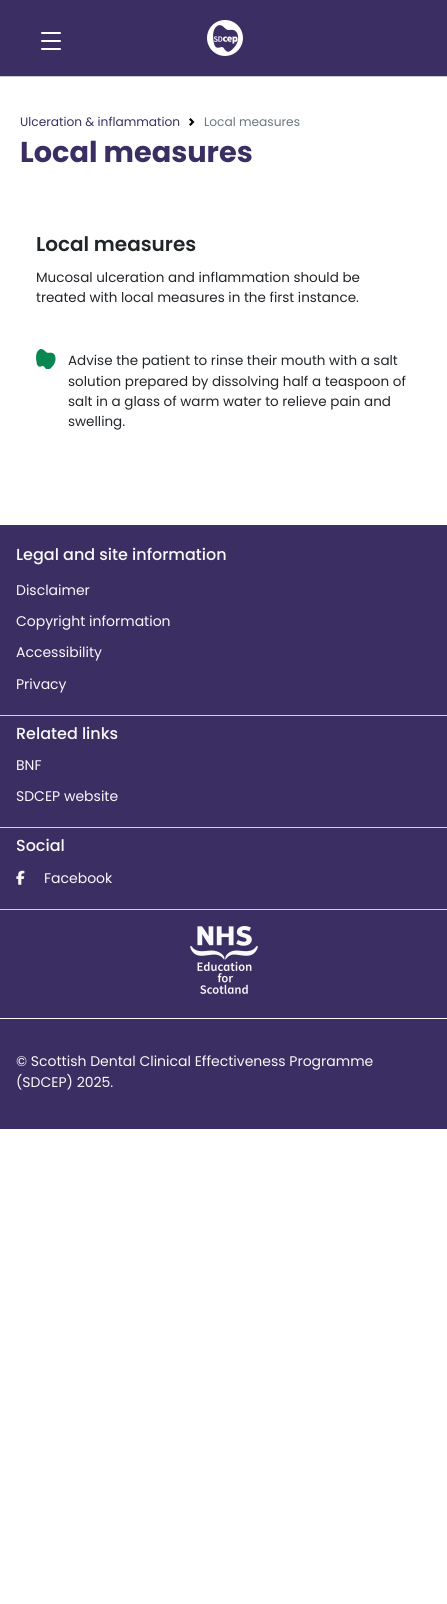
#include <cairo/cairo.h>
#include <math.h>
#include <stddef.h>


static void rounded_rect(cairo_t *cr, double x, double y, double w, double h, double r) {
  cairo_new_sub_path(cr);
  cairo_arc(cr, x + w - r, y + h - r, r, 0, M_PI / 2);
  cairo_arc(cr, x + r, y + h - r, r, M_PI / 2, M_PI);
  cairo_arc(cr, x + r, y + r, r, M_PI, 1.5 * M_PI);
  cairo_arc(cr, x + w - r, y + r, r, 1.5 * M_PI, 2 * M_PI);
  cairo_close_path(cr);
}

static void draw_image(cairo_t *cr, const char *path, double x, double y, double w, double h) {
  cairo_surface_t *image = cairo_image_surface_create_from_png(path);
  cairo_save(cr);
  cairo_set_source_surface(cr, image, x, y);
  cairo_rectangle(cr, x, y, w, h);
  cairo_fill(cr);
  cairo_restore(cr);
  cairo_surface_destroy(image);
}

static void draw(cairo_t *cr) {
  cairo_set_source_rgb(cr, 1, 1, 1);
  cairo_paint(cr);
  cairo_set_source_rgb(cr, 59 / 255.0, 46 / 255.0, 99 / 255.0);
  cairo_rectangle(cr, 0, 0, 447, 76);
  cairo_fill(cr);
  cairo_set_source_rgb(cr, 1, 1, 1);
  rounded_rect(cr, 41, 32, 20, 2, 1);
  cairo_fill(cr);
  rounded_rect(cr, 41, 40, 20, 2, 1);
  cairo_fill(cr);
  rounded_rect(cr, 41, 48, 20, 2, 1);
  cairo_fill(cr);
  draw_image(cr, "images/1.png", 207, 20, 36, 36);
  cairo_set_source_rgb(cr, 200 / 255.0, 201 / 255.0, 202 / 255.0);
  cairo_rectangle(cr, 0, 76, 447, 1);
  cairo_fill(cr);
  draw_image(cr, "images/2.png", 189, 118, 6, 8);
  draw_image(cr, "images/3.png", 36, 349, 20, 20);
  cairo_set_source_rgb(cr, 59 / 255.0, 46 / 255.0, 99 / 255.0);
  cairo_rectangle(cr, 0, 525, 447, 604);
  cairo_fill(cr);
  cairo_set_source_rgb(cr, 210 / 255.0, 208 / 255.0, 220 / 255.0);
  cairo_rectangle(cr, 0, 715, 447, 1);
  cairo_fill(cr);
  cairo_rectangle(cr, 0, 827, 447, 1);
  cairo_fill(cr);
  draw_image(cr, "images/4.png", 16, 870, 9, 15);
  cairo_rectangle(cr, 0, 909, 447, 1);
  cairo_fill(cr);
  draw_image(cr, "images/5.png", 190, 926, 68, 68);
  cairo_set_source_rgb(cr, 248 / 255.0, 249 / 255.0, 250 / 255.0);
  cairo_rectangle(cr, 0, 1018, 447, 1);
  cairo_fill(cr);
  cairo_select_font_face(cr, "Poppins", CAIRO_FONT_SLANT_NORMAL, CAIRO_FONT_WEIGHT_NORMAL);
  cairo_set_font_size(cr, 12.2);
  cairo_set_source_rgb(cr, 59 / 255.0, 46 / 255.0, 99 / 255.0);
  cairo_move_to(cr, 20, 126);
  cairo_show_text(cr, "Ulceration & inflammation");
  cairo_set_source_rgb(cr, 108 / 255.0, 117 / 255.0, 125 / 255.0);
  cairo_move_to(cr, 204, 126);
  cairo_show_text(cr, "Local measures");
  cairo_select_font_face(cr, "Poppins", CAIRO_FONT_SLANT_NORMAL, CAIRO_FONT_WEIGHT_BOLD);
  cairo_set_font_size(cr, 28.75);
  cairo_set_source_rgb(cr, 59 / 255.0, 46 / 255.0, 99 / 255.0);
  cairo_move_to(cr, 20, 162);
  cairo_show_text(cr, "Local measures");
  cairo_select_font_face(cr, "Poppins SemiBold", CAIRO_FONT_SLANT_NORMAL, CAIRO_FONT_WEIGHT_NORMAL);
  cairo_set_font_size(cr, 20);
  cairo_set_source_rgb(cr, 33 / 255.0, 37 / 255.0, 41 / 255.0);
  cairo_move_to(cr, 36, 251);
  cairo_show_text(cr, "Local measures");
  cairo_select_font_face(cr, "Poppins", CAIRO_FONT_SLANT_NORMAL, CAIRO_FONT_WEIGHT_NORMAL);
  cairo_set_font_size(cr, 13.5);
  cairo_move_to(cr, 36, 282);
  cairo_show_text(cr, "Mucosal ulceration and inflammation should be");
  cairo_move_to(cr, 36, 302);
  cairo_show_text(cr, "treated with local measures in the first instance.");
  cairo_move_to(cr, 68, 365);
  cairo_show_text(cr, "Advise the patient to rinse their mouth with a salt");
  cairo_move_to(cr, 68, 386);
  cairo_show_text(cr, "solution prepared by dissolving half a teaspoon of");
  cairo_move_to(cr, 68, 406);
  cairo_show_text(cr, "salt in a glass of warm water to relieve pain and");
  cairo_move_to(cr, 68, 426);
  cairo_show_text(cr, "swelling.");
  cairo_select_font_face(cr, "Poppins Medium", CAIRO_FONT_SLANT_NORMAL, CAIRO_FONT_WEIGHT_NORMAL);
  cairo_set_font_size(cr, 16);
  cairo_set_source_rgb(cr, 248 / 255.0, 249 / 255.0, 250 / 255.0);
  cairo_move_to(cr, 16, 560);
  cairo_show_text(cr, "Legal and site information");
  cairo_select_font_face(cr, "Poppins", CAIRO_FONT_SLANT_NORMAL, CAIRO_FONT_WEIGHT_NORMAL);
  cairo_set_font_size(cr, 14);
  cairo_move_to(cr, 16, 595);
  cairo_show_text(cr, "Disclaimer");
  cairo_move_to(cr, 16, 626);
  cairo_show_text(cr, "Copyright information");
  cairo_move_to(cr, 16, 657);
  cairo_show_text(cr, "Accessibility");
  cairo_move_to(cr, 16, 689);
  cairo_show_text(cr, "Privacy");
  cairo_select_font_face(cr, "Poppins Medium", CAIRO_FONT_SLANT_NORMAL, CAIRO_FONT_WEIGHT_NORMAL);
  cairo_set_font_size(cr, 16);
  cairo_move_to(cr, 16, 739);
  cairo_show_text(cr, "Related links");
  cairo_select_font_face(cr, "Poppins", CAIRO_FONT_SLANT_NORMAL, CAIRO_FONT_WEIGHT_NORMAL);
  cairo_set_font_size(cr, 14);
  cairo_move_to(cr, 16, 770);
  cairo_show_text(cr, "BNF");
  cairo_move_to(cr, 16, 801);
  cairo_show_text(cr, "SDCEP website");
  cairo_select_font_face(cr, "Poppins Medium", CAIRO_FONT_SLANT_NORMAL, CAIRO_FONT_WEIGHT_NORMAL);
  cairo_set_font_size(cr, 16);
  cairo_move_to(cr, 16, 851);
  cairo_show_text(cr, "Social");
  cairo_select_font_face(cr, "Poppins", CAIRO_FONT_SLANT_NORMAL, CAIRO_FONT_WEIGHT_NORMAL);
  cairo_set_font_size(cr, 14);
  cairo_move_to(cr, 44, 883);
  cairo_show_text(cr, "Facebook");
  cairo_move_to(cr, 16, 1066);
  cairo_show_text(cr, "© Scottish Dental Clinical Effectiveness Programme");
  cairo_move_to(cr, 16, 1087);
  cairo_show_text(cr, "(SDCEP) 2025.");
}

int main(void) {
  cairo_surface_t *surface = cairo_image_surface_create(CAIRO_FORMAT_RGB24, 447, 1604);
  cairo_t *cr = cairo_create(surface);
  cairo_font_options_t *options = cairo_font_options_create();
  cairo_font_options_set_hint_metrics(options, CAIRO_HINT_METRICS_OFF);
  cairo_font_options_set_hint_style(options, CAIRO_HINT_STYLE_NONE);
  cairo_set_font_options(cr, options);
  cairo_set_miter_limit(cr, 4);
  draw(cr);
  cairo_surface_write_to_png(surface, "out.png");
  cairo_font_options_destroy(options);
  cairo_destroy(cr);
  cairo_surface_destroy(surface);
  return 0;
}
